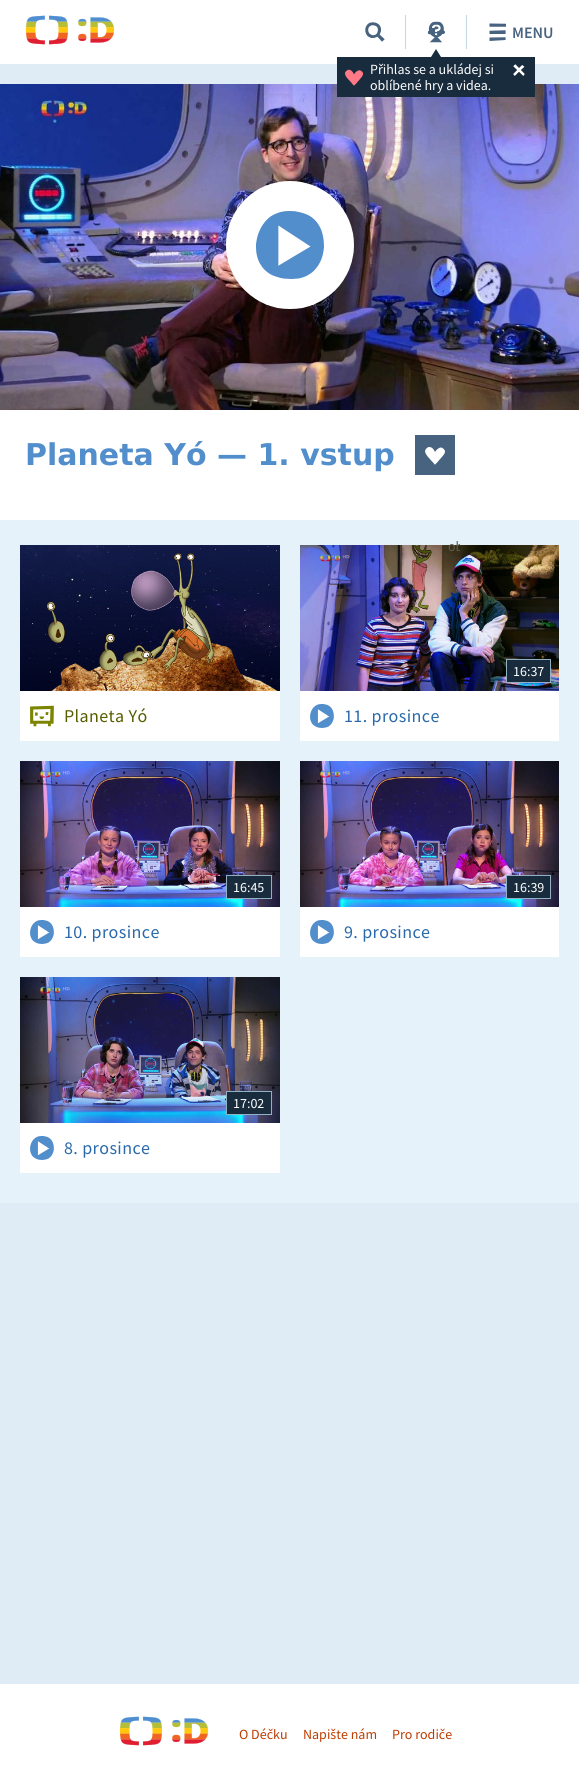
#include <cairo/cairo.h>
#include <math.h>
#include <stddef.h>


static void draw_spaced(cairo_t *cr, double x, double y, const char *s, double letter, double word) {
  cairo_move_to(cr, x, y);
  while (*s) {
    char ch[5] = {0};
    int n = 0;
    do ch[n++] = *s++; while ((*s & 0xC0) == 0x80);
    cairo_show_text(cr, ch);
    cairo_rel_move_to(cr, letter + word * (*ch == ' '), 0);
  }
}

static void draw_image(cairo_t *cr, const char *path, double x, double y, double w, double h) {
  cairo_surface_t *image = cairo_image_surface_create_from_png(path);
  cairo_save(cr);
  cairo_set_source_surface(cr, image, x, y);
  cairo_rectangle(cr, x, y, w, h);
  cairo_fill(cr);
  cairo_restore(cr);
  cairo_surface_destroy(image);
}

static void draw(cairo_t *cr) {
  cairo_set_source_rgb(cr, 224 / 255.0, 236 / 255.0, 245 / 255.0);
  cairo_paint(cr);
  cairo_set_source_rgb(cr, 1, 1, 1);
  cairo_rectangle(cr, 0, 0, 579, 64);
  cairo_fill(cr);
  draw_image(cr, "images/1.png", 25, 15, 90, 30);
  draw_image(cr, "images/2.png", 365, 22, 20, 20);
  cairo_set_source_rgb(cr, 195 / 255.0, 215 / 255.0, 230 / 255.0);
  cairo_rectangle(cr, 466, 15, 1, 34);
  cairo_fill(cr);
  draw_image(cr, "images/3.png", 489, 23, 17, 18);
  cairo_rectangle(cr, 405, 15, 1, 34);
  cairo_fill(cr);
  draw_image(cr, "images/4.png", 427, 21, 18, 22);
  draw_image(cr, "images/7.png", 0, 84, 579, 326);
  cairo_set_source_rgb(cr, 25 / 255.0, 44 / 255.0, 61 / 255.0);
  cairo_rectangle(cr, 337, 57, 198, 40);
  cairo_fill(cr);
  cairo_new_path(cr);
  cairo_move_to(cr, 441, 57);
  cairo_line_to(cr, 431, 57);
  cairo_line_to(cr, 436, 49);
  cairo_close_path(cr);
  cairo_fill(cr);
  draw_image(cr, "images/5.png", 345, 69, 19, 17);
  draw_image(cr, "images/6.png", 513, 64, 12, 12);
  draw_image(cr, "images/8.png", 226, 181, 128, 128);
  cairo_set_source_rgb(cr, 1, 1, 1);
  cairo_rectangle(cr, 0, 410, 579, 110);
  cairo_fill(cr);
  cairo_set_source_rgb(cr, 72 / 255.0, 99 / 255.0, 128 / 255.0);
  cairo_rectangle(cr, 415, 435, 40, 40);
  cairo_fill(cr);
  draw_image(cr, "images/9.png", 425, 447, 20, 18);
  cairo_set_source_rgb(cr, 230 / 255.0, 242 / 255.0, 250 / 255.0);
  cairo_rectangle(cr, 0, 520, 579, 683);
  cairo_fill(cr);
  draw_image(cr, "images/10.png", 20, 545, 260, 146);
  cairo_set_source_rgb(cr, 1, 1, 1);
  cairo_rectangle(cr, 20, 691, 260, 50);
  cairo_fill(cr);
  draw_image(cr, "images/11.png", 30, 705, 24, 22);
  draw_image(cr, "images/12.png", 300, 545, 259, 146);
  cairo_set_source_rgb(cr, 25 / 255.0, 44 / 255.0, 61 / 255.0);
  cairo_rectangle(cr, 506.5, 659.5, 44, 23);
  cairo_fill_preserve(cr);
  cairo_set_source_rgb(cr, 145 / 255.0, 176 / 255.0, 196 / 255.0);
  cairo_set_line_width(cr, 1);
  cairo_stroke(cr);
  cairo_set_source_rgb(cr, 1, 1, 1);
  cairo_rectangle(cr, 300, 691, 259, 50);
  cairo_fill(cr);
  draw_image(cr, "images/13.png", 310, 704, 24, 24);
  draw_image(cr, "images/14.png", 20, 761, 260, 146);
  cairo_set_source_rgb(cr, 25 / 255.0, 44 / 255.0, 61 / 255.0);
  cairo_rectangle(cr, 226.5, 875.5, 45, 23);
  cairo_fill_preserve(cr);
  cairo_set_source_rgb(cr, 145 / 255.0, 176 / 255.0, 196 / 255.0);
  cairo_stroke(cr);
  cairo_set_source_rgb(cr, 1, 1, 1);
  cairo_rectangle(cr, 20, 907, 260, 50);
  cairo_fill(cr);
  draw_image(cr, "images/13.png", 30, 920, 24, 24);
  draw_image(cr, "images/15.png", 300, 761, 259, 146);
  cairo_set_source_rgb(cr, 25 / 255.0, 44 / 255.0, 61 / 255.0);
  cairo_rectangle(cr, 506.5, 875.5, 44, 23);
  cairo_fill_preserve(cr);
  cairo_set_source_rgb(cr, 145 / 255.0, 176 / 255.0, 196 / 255.0);
  cairo_stroke(cr);
  cairo_set_source_rgb(cr, 1, 1, 1);
  cairo_rectangle(cr, 300, 907, 259, 50);
  cairo_fill(cr);
  draw_image(cr, "images/13.png", 310, 920, 24, 24);
  draw_image(cr, "images/16.png", 20, 977, 260, 146);
  cairo_set_source_rgb(cr, 25 / 255.0, 44 / 255.0, 61 / 255.0);
  cairo_rectangle(cr, 226.5, 1091.5, 45, 23);
  cairo_fill_preserve(cr);
  cairo_set_source_rgb(cr, 145 / 255.0, 176 / 255.0, 196 / 255.0);
  cairo_stroke(cr);
  cairo_set_source_rgb(cr, 1, 1, 1);
  cairo_rectangle(cr, 20, 1123, 260, 50);
  cairo_fill(cr);
  draw_image(cr, "images/13.png", 30, 1136, 24, 24);
  cairo_rectangle(cr, 0, 1684, 579, 94);
  cairo_fill(cr);
  draw_image(cr, "images/1.png", 119, 1716, 90, 30);
  cairo_select_font_face(cr, "Source Sans Pro SemiBold", CAIRO_FONT_SLANT_NORMAL, CAIRO_FONT_WEIGHT_NORMAL);
  cairo_set_font_size(cr, 16);
  cairo_set_source_rgb(cr, 72 / 255.0, 99 / 255.0, 128 / 255.0);
  cairo_move_to(cr, 512, 38);
  cairo_show_text(cr, "MENU");
  cairo_select_font_face(cr, "Source Sans Pro", CAIRO_FONT_SLANT_NORMAL, CAIRO_FONT_WEIGHT_NORMAL);
  cairo_set_font_size(cr, 14);
  cairo_set_source_rgb(cr, 1, 1, 1);
  cairo_move_to(cr, 370, 74);
  cairo_show_text(cr, "Přihlas se a ukládej si");
  cairo_move_to(cr, 370, 90);
  cairo_show_text(cr, "oblíbené hry a videa.");
  cairo_select_font_face(cr, "DejaVu Sans", CAIRO_FONT_SLANT_NORMAL, CAIRO_FONT_WEIGHT_BOLD);
  cairo_set_font_size(cr, 30);
  cairo_set_source_rgb(cr, 81 / 255.0, 142 / 255.0, 203 / 255.0);
  cairo_move_to(cr, 25, 465);
  cairo_show_text(cr, "Planeta Yó — 1. vstup");
  cairo_save(cr);
  cairo_rectangle(cr, 410, 486, 50, 120);
  cairo_clip(cr);
  cairo_select_font_face(cr, "Source Sans Pro", CAIRO_FONT_SLANT_NORMAL, CAIRO_FONT_WEIGHT_NORMAL);
  cairo_set_font_size(cr, 14);
  cairo_set_source_rgb(cr, 95 / 255.0, 91 / 255.0, 77 / 255.0);
  cairo_move_to(cr, 448, 551);
  cairo_show_text(cr, "ob");
  cairo_restore(cr);
  cairo_select_font_face(cr, "Source Sans Pro", CAIRO_FONT_SLANT_NORMAL, CAIRO_FONT_WEIGHT_NORMAL);
  cairo_set_font_size(cr, 18);
  cairo_set_source_rgb(cr, 87 / 255.0, 93 / 255.0, 0);
  draw_spaced(cr, 64, 722, "Planeta Yó", 0.4, 0);
  cairo_set_font_size(cr, 14);
  cairo_set_source_rgb(cr, 1, 1, 1);
  cairo_move_to(cr, 513, 676);
  cairo_show_text(cr, "16:37");
  cairo_set_font_size(cr, 18);
  cairo_set_source_rgb(cr, 41 / 255.0, 105 / 255.0, 171 / 255.0);
  draw_spaced(cr, 344, 722, "11. prosince", 0.4, 0);
  cairo_set_font_size(cr, 14);
  cairo_set_source_rgb(cr, 1, 1, 1);
  cairo_move_to(cr, 233, 892);
  cairo_show_text(cr, "16:45");
  cairo_set_font_size(cr, 18);
  cairo_set_source_rgb(cr, 41 / 255.0, 105 / 255.0, 171 / 255.0);
  draw_spaced(cr, 64, 938, "10. prosince", 0.4, 0);
  cairo_set_font_size(cr, 14);
  cairo_set_source_rgb(cr, 1, 1, 1);
  cairo_move_to(cr, 513, 892);
  cairo_show_text(cr, "16:39");
  cairo_set_font_size(cr, 18);
  cairo_set_source_rgb(cr, 41 / 255.0, 105 / 255.0, 171 / 255.0);
  draw_spaced(cr, 344, 938, "9. prosince", 0.4, 0);
  cairo_set_font_size(cr, 14);
  cairo_set_source_rgb(cr, 1, 1, 1);
  cairo_move_to(cr, 233, 1108);
  cairo_show_text(cr, "17:02");
  cairo_set_font_size(cr, 18);
  cairo_set_source_rgb(cr, 41 / 255.0, 105 / 255.0, 171 / 255.0);
  draw_spaced(cr, 64, 1154, "8. prosince", 0.4, 0);
  cairo_set_font_size(cr, 14);
  cairo_set_source_rgb(cr, 189 / 255.0, 61 / 255.0, 0);
  cairo_move_to(cr, 239, 1739);
  cairo_show_text(cr, "O Déčku");
  cairo_move_to(cr, 303, 1739);
  cairo_show_text(cr, "Napište nám");
  cairo_move_to(cr, 392, 1739);
  cairo_show_text(cr, "Pro rodiče");
}

int main(void) {
  cairo_surface_t *surface = cairo_image_surface_create(CAIRO_FORMAT_RGB24, 579, 1778);
  cairo_t *cr = cairo_create(surface);
  cairo_font_options_t *options = cairo_font_options_create();
  cairo_font_options_set_hint_metrics(options, CAIRO_HINT_METRICS_OFF);
  cairo_font_options_set_hint_style(options, CAIRO_HINT_STYLE_NONE);
  cairo_set_font_options(cr, options);
  cairo_set_miter_limit(cr, 4);
  draw(cr);
  cairo_surface_write_to_png(surface, "out.png");
  cairo_font_options_destroy(options);
  cairo_destroy(cr);
  cairo_surface_destroy(surface);
  return 0;
}
